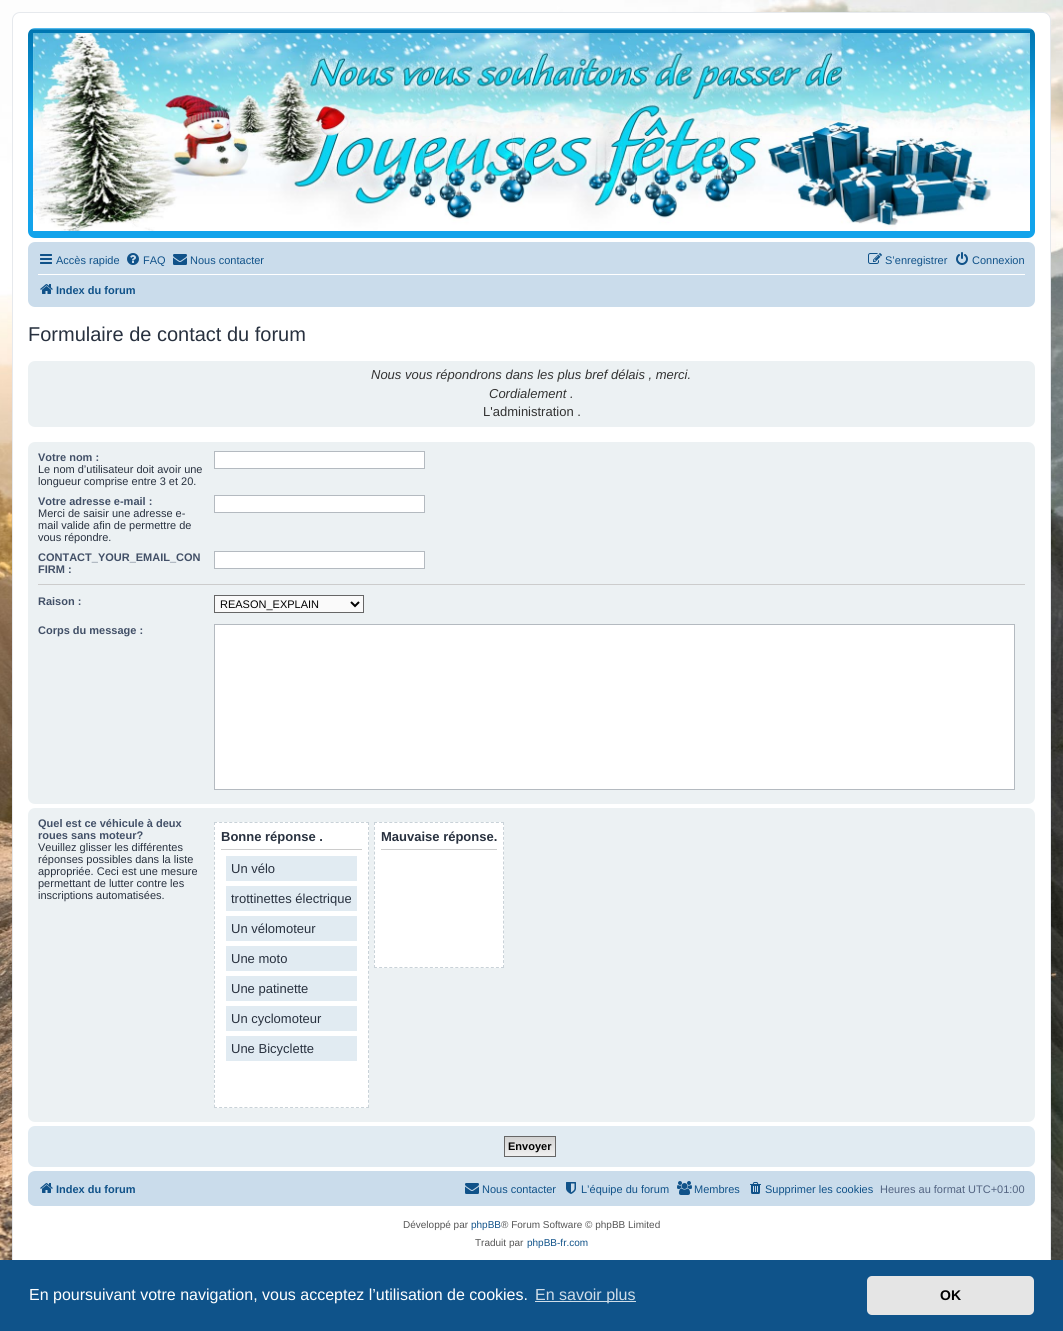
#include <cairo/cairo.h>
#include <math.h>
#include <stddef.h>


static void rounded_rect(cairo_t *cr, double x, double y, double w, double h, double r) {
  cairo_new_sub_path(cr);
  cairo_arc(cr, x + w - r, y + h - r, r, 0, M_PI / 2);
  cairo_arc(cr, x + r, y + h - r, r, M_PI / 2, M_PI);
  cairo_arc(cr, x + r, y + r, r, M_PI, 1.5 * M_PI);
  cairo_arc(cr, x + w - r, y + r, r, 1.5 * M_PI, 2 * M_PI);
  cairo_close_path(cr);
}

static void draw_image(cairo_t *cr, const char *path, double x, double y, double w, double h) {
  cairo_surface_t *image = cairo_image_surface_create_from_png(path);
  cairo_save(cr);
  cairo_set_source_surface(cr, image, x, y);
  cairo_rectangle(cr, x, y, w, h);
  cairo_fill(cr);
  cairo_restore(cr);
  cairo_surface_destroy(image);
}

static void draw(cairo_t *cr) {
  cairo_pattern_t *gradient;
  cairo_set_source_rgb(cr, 1, 1, 1);
  cairo_paint(cr);
  draw_image(cr, "images/1.png", 1062, 0, 1, 1260);
  draw_image(cr, "images/2.png", 0, 0, 1063, 1260);
  cairo_set_source_rgb(cr, 1, 1, 1);
  rounded_rect(cr, 12.5, 12.5, 1038, 1301, 7.5);
  cairo_fill_preserve(cr);
  cairo_set_source_rgb(cr, 230 / 255.0, 233 / 255.0, 237 / 255.0);
  cairo_set_line_width(cr, 1);
  cairo_stroke(cr);
  gradient = cairo_pattern_create_linear(532, 28, 532, 238);
  cairo_pattern_add_color_stop_rgba(gradient, 0, 106 / 255.0, 206 / 255.0, 1, 1);
  cairo_pattern_add_color_stop_rgba(gradient, 0.01, 0, 118 / 255.0, 177 / 255.0, 1);
  cairo_pattern_add_color_stop_rgba(gradient, 0.44, 18 / 255.0, 163 / 255.0, 235 / 255.0, 1);
  cairo_pattern_add_color_stop_rgba(gradient, 1, 18 / 255.0, 163 / 255.0, 235 / 255.0, 1);
  cairo_set_source(cr, gradient);
  cairo_pattern_destroy(gradient);
  rounded_rect(cr, 28, 28, 1007, 210, 7);
  cairo_fill(cr);
  draw_image(cr, "images/3.png", 33, 33, 997, 198);
  cairo_set_source_rgb(cr, 202 / 255.0, 220 / 255.0, 235 / 255.0);
  rounded_rect(cr, 28, 242, 1007, 65, 7);
  cairo_fill(cr);
  draw_image(cr, "images/4.png", 40, 254, 12, 10);
  draw_image(cr, "images/5.png", 127, 253, 12, 12);
  draw_image(cr, "images/6.png", 173, 254, 14, 11);
  draw_image(cr, "images/7.png", 868, 253, 14, 11);
  draw_image(cr, "images/8.png", 956, 252, 12, 13);
  cairo_set_source_rgb(cr, 1, 1, 1);
  cairo_rectangle(cr, 38, 274, 987, 1);
  cairo_fill(cr);
  draw_image(cr, "images/9.png", 40, 284, 13, 10);
  cairo_set_source_rgb(cr, 236 / 255.0, 241 / 255.0, 243 / 255.0);
  rounded_rect(cr, 28, 361, 1007, 66, 7);
  cairo_fill(cr);
  rounded_rect(cr, 28, 442, 1007, 362, 7);
  cairo_fill(cr);
  cairo_set_source_rgb(cr, 1, 1, 1);
  cairo_rectangle(cr, 214.5, 451.5, 210, 17);
  cairo_fill_preserve(cr);
  cairo_set_source_rgb(cr, 180 / 255.0, 186 / 255.0, 192 / 255.0);
  cairo_stroke(cr);
  cairo_set_source_rgb(cr, 1, 1, 1);
  cairo_rectangle(cr, 214.5, 495.5, 210, 17);
  cairo_fill_preserve(cr);
  cairo_set_source_rgb(cr, 180 / 255.0, 186 / 255.0, 192 / 255.0);
  cairo_stroke(cr);
  cairo_set_source_rgb(cr, 1, 1, 1);
  cairo_rectangle(cr, 214.5, 551.5, 210, 17);
  cairo_fill_preserve(cr);
  cairo_set_source_rgb(cr, 180 / 255.0, 186 / 255.0, 192 / 255.0);
  cairo_stroke(cr);
  cairo_set_source_rgb(cr, 204 / 255.0, 204 / 255.0, 204 / 255.0);
  cairo_rectangle(cr, 38, 584, 987, 1);
  cairo_fill(cr);
  cairo_set_source_rgb(cr, 250 / 255.0, 250 / 255.0, 250 / 255.0);
  cairo_rectangle(cr, 214.5, 595.5, 149, 17);
  cairo_fill_preserve(cr);
  cairo_set_source_rgb(cr, 102 / 255.0, 102 / 255.0, 102 / 255.0);
  cairo_stroke(cr);
  cairo_new_path(cr);
  cairo_move_to(cr, 351, 602);
  cairo_line_to(cr, 355, 606);
  cairo_line_to(cr, 359, 602);
  cairo_set_source_rgb(cr, 0, 0, 0);
  cairo_set_line_width(cr, 2);
  cairo_stroke(cr);
  cairo_set_source_rgb(cr, 1, 1, 1);
  cairo_rectangle(cr, 214.5, 624.5, 800, 165);
  cairo_fill_preserve(cr);
  cairo_set_source_rgb(cr, 180 / 255.0, 186 / 255.0, 192 / 255.0);
  cairo_set_line_width(cr, 1);
  cairo_stroke(cr);
  cairo_set_source_rgb(cr, 236 / 255.0, 241 / 255.0, 243 / 255.0);
  rounded_rect(cr, 28, 808, 1007, 314, 7);
  cairo_fill(cr);
  cairo_set_source_rgb(cr, 1, 1, 1);
  cairo_rectangle(cr, 214, 822, 155, 286);
  cairo_fill(cr);
  cairo_new_path(cr);
  cairo_move_to(cr, 214, 822.5);
  cairo_line_to(cr, 369, 822.5);
  cairo_set_source_rgb(cr, 201 / 255.0, 210 / 255.0, 216 / 255.0);
  cairo_set_dash(cr, (double[]){3, 2.07}, 2, 0);
  cairo_stroke(cr);
  cairo_new_path(cr);
  cairo_move_to(cr, 368.5, 822);
  cairo_line_to(cr, 368.5, 1108);
  cairo_set_dash(cr, (double[]){3, 1.96}, 2, 0);
  cairo_stroke(cr);
  cairo_new_path(cr);
  cairo_move_to(cr, 214, 1107.5);
  cairo_line_to(cr, 369, 1107.5);
  cairo_set_dash(cr, (double[]){3, 2.07}, 2, 0);
  cairo_stroke(cr);
  cairo_new_path(cr);
  cairo_move_to(cr, 214.5, 822);
  cairo_line_to(cr, 214.5, 1108);
  cairo_set_dash(cr, (double[]){3, 1.96}, 2, 0);
  cairo_stroke(cr);
  cairo_set_source_rgb(cr, 204 / 255.0, 204 / 255.0, 204 / 255.0);
  cairo_rectangle(cr, 221, 849, 141, 1);
  cairo_fill(cr);
  cairo_set_source_rgb(cr, 225 / 255.0, 235 / 255.0, 242 / 255.0);
  cairo_rectangle(cr, 226, 856, 131, 25);
  cairo_fill(cr);
  cairo_rectangle(cr, 226, 886, 131, 25);
  cairo_fill(cr);
  cairo_rectangle(cr, 226, 916, 131, 25);
  cairo_fill(cr);
  cairo_rectangle(cr, 226, 946, 131, 25);
  cairo_fill(cr);
  cairo_rectangle(cr, 226, 976, 131, 25);
  cairo_fill(cr);
  cairo_rectangle(cr, 226, 1006, 131, 25);
  cairo_fill(cr);
  cairo_rectangle(cr, 226, 1036, 131, 25);
  cairo_fill(cr);
  cairo_set_source_rgb(cr, 1, 1, 1);
  cairo_rectangle(cr, 374, 822, 130, 146);
  cairo_fill(cr);
  cairo_new_path(cr);
  cairo_move_to(cr, 374, 822.5);
  cairo_line_to(cr, 504, 822.5);
  cairo_set_source_rgb(cr, 201 / 255.0, 210 / 255.0, 216 / 255.0);
  cairo_set_dash(cr, (double[]){3, 2.08}, 2, 0);
  cairo_stroke(cr);
  cairo_new_path(cr);
  cairo_move_to(cr, 503.5, 822);
  cairo_line_to(cr, 503.5, 968);
  cairo_set_dash(cr, (double[]){3, 1.93}, 2, 0);
  cairo_stroke(cr);
  cairo_new_path(cr);
  cairo_move_to(cr, 374, 967.5);
  cairo_line_to(cr, 504, 967.5);
  cairo_set_dash(cr, (double[]){3, 2.08}, 2, 0);
  cairo_stroke(cr);
  cairo_new_path(cr);
  cairo_move_to(cr, 374.5, 822);
  cairo_line_to(cr, 374.5, 968);
  cairo_set_dash(cr, (double[]){3, 1.93}, 2, 0);
  cairo_stroke(cr);
  cairo_set_source_rgb(cr, 204 / 255.0, 204 / 255.0, 204 / 255.0);
  cairo_rectangle(cr, 381, 849, 116, 1);
  cairo_fill(cr);
  cairo_set_source_rgb(cr, 225 / 255.0, 235 / 255.0, 242 / 255.0);
  rounded_rect(cr, 28, 1126, 1007, 41, 7);
  cairo_fill(cr);
  gradient = cairo_pattern_create_linear(530, 1137, 530, 1156);
  cairo_pattern_add_color_stop_rgba(gradient, 0, 210 / 255.0, 210 / 255.0, 210 / 255.0, 1);
  cairo_pattern_add_color_stop_rgba(gradient, 1, 239 / 255.0, 239 / 255.0, 239 / 255.0, 1);
  cairo_set_source(cr, gradient);
  cairo_pattern_destroy(gradient);
  cairo_rectangle(cr, 505, 1137, 50, 19);
  cairo_fill(cr);
  cairo_rectangle(cr, 504.5, 1136.5, 51, 20);
  cairo_set_source_rgb(cr, 102 / 255.0, 102 / 255.0, 102 / 255.0);
  cairo_set_dash(cr, NULL, 0, 0);
  cairo_stroke(cr);
  cairo_set_source_rgb(cr, 202 / 255.0, 220 / 255.0, 235 / 255.0);
  rounded_rect(cr, 28, 1171, 1007, 35, 7);
  cairo_fill(cr);
  draw_image(cr, "images/9.png", 40, 1183, 13, 10);
  draw_image(cr, "images/6.png", 465, 1183, 14, 11);
  draw_image(cr, "images/10.png", 566, 1182, 10, 12);
  draw_image(cr, "images/11.png", 677, 1181, 15, 14);
  draw_image(cr, "images/12.png", 750, 1182, 11, 12);
  cairo_set_source_rgb(cr, 15 / 255.0, 83 / 255.0, 138 / 255.0);
  cairo_rectangle(cr, 0, 1260, 1063, 71);
  cairo_fill(cr);
  cairo_set_source_rgb(cr, 207 / 255.0, 221 / 255.0, 232 / 255.0);
  cairo_rectangle(cr, 535, 1301, 101, 1);
  cairo_fill(cr);
  cairo_set_source_rgb(cr, 229 / 255.0, 229 / 255.0, 229 / 255.0);
  rounded_rect(cr, 867, 1276, 167, 39, 5);
  cairo_fill(cr);
  cairo_select_font_face(cr, "Liberation Sans", CAIRO_FONT_SLANT_NORMAL, CAIRO_FONT_WEIGHT_NORMAL);
  cairo_set_font_size(cr, 11);
  cairo_set_source_rgb(cr, 16 / 255.0, 82 / 255.0, 137 / 255.0);
  cairo_move_to(cr, 56, 264);
  cairo_show_text(cr, "Accès rapide");
  cairo_move_to(cr, 143, 264);
  cairo_show_text(cr, "FAQ");
  cairo_move_to(cr, 190, 264);
  cairo_show_text(cr, "Nous contacter");
  cairo_move_to(cr, 885, 264);
  cairo_show_text(cr, "S’enregistrer");
  cairo_move_to(cr, 972, 264);
  cairo_show_text(cr, "Connexion");
  cairo_select_font_face(cr, "Liberation Sans", CAIRO_FONT_SLANT_NORMAL, CAIRO_FONT_WEIGHT_BOLD);
  cairo_move_to(cr, 56, 294);
  cairo_show_text(cr, "Index du forum");
  cairo_select_font_face(cr, "Liberation Sans", CAIRO_FONT_SLANT_NORMAL, CAIRO_FONT_WEIGHT_NORMAL);
  cairo_set_font_size(cr, 20);
  cairo_set_source_rgb(cr, 40 / 255.0, 49 / 255.0, 63 / 255.0);
  cairo_move_to(cr, 28, 341);
  cairo_show_text(cr, "Formulaire de contact du forum");
  cairo_select_font_face(cr, "Liberation Sans", CAIRO_FONT_SLANT_ITALIC, CAIRO_FONT_WEIGHT_NORMAL);
  cairo_set_font_size(cr, 13);
  cairo_set_source_rgb(cr, 51 / 255.0, 51 / 255.0, 51 / 255.0);
  cairo_move_to(cr, 371, 379);
  cairo_show_text(cr, "Nous vous répondrons dans les plus bref délais , merci.");
  cairo_move_to(cr, 489, 398);
  cairo_show_text(cr, "Cordialement .");
  cairo_select_font_face(cr, "Liberation Sans", CAIRO_FONT_SLANT_NORMAL, CAIRO_FONT_WEIGHT_NORMAL);
  cairo_move_to(cr, 483, 416);
  cairo_show_text(cr, "L'administration .");
  cairo_select_font_face(cr, "Liberation Sans", CAIRO_FONT_SLANT_NORMAL, CAIRO_FONT_WEIGHT_BOLD);
  cairo_set_font_size(cr, 11);
  cairo_set_source_rgb(cr, 66 / 255.0, 80 / 255.0, 103 / 255.0);
  cairo_move_to(cr, 38, 461);
  cairo_show_text(cr, "Votre nom :");
  cairo_select_font_face(cr, "Liberation Sans", CAIRO_FONT_SLANT_NORMAL, CAIRO_FONT_WEIGHT_NORMAL);
  cairo_set_source_rgb(cr, 40 / 255.0, 49 / 255.0, 63 / 255.0);
  cairo_move_to(cr, 38, 473);
  cairo_show_text(cr, "Le nom d’utilisateur doit avoir une");
  cairo_move_to(cr, 38, 485);
  cairo_show_text(cr, "longueur comprise entre 3 et 20.");
  cairo_select_font_face(cr, "Liberation Sans", CAIRO_FONT_SLANT_NORMAL, CAIRO_FONT_WEIGHT_BOLD);
  cairo_set_source_rgb(cr, 66 / 255.0, 80 / 255.0, 103 / 255.0);
  cairo_move_to(cr, 38, 505);
  cairo_show_text(cr, "Votre adresse e-mail :");
  cairo_select_font_face(cr, "Liberation Sans", CAIRO_FONT_SLANT_NORMAL, CAIRO_FONT_WEIGHT_NORMAL);
  cairo_set_source_rgb(cr, 40 / 255.0, 49 / 255.0, 63 / 255.0);
  cairo_move_to(cr, 38, 517);
  cairo_show_text(cr, "Merci de saisir une adresse e-");
  cairo_move_to(cr, 38, 529);
  cairo_show_text(cr, "mail valide afin de permettre de");
  cairo_move_to(cr, 38, 541);
  cairo_show_text(cr, "vous répondre.");
  cairo_select_font_face(cr, "Liberation Sans", CAIRO_FONT_SLANT_NORMAL, CAIRO_FONT_WEIGHT_BOLD);
  cairo_set_source_rgb(cr, 66 / 255.0, 80 / 255.0, 103 / 255.0);
  cairo_move_to(cr, 38, 561);
  cairo_show_text(cr, "CONTACT_YOUR_EMAIL_CON");
  cairo_move_to(cr, 38, 573);
  cairo_show_text(cr, "FIRM :");
  cairo_move_to(cr, 38, 605);
  cairo_show_text(cr, "Raison :");
  cairo_select_font_face(cr, "Liberation Sans", CAIRO_FONT_SLANT_NORMAL, CAIRO_FONT_WEIGHT_NORMAL);
  cairo_set_source_rgb(cr, 0, 0, 0);
  cairo_move_to(cr, 220, 608);
  cairo_show_text(cr, "REASON_EXPLAIN");
  cairo_select_font_face(cr, "Liberation Sans", CAIRO_FONT_SLANT_NORMAL, CAIRO_FONT_WEIGHT_BOLD);
  cairo_set_source_rgb(cr, 66 / 255.0, 80 / 255.0, 103 / 255.0);
  cairo_move_to(cr, 38, 634);
  cairo_show_text(cr, "Corps du message :");
  cairo_move_to(cr, 38, 827);
  cairo_show_text(cr, "Quel est ce véhicule à deux");
  cairo_move_to(cr, 38, 839);
  cairo_show_text(cr, "roues sans moteur?");
  cairo_select_font_face(cr, "Liberation Sans", CAIRO_FONT_SLANT_NORMAL, CAIRO_FONT_WEIGHT_NORMAL);
  cairo_set_source_rgb(cr, 40 / 255.0, 49 / 255.0, 63 / 255.0);
  cairo_move_to(cr, 38, 851);
  cairo_show_text(cr, "Veuillez glisser les différentes");
  cairo_move_to(cr, 38, 863);
  cairo_show_text(cr, "réponses possibles dans la liste");
  cairo_move_to(cr, 38, 875);
  cairo_show_text(cr, "appropriée. Ceci est une mesure");
  cairo_move_to(cr, 38, 887);
  cairo_show_text(cr, "permettant de lutter contre les");
  cairo_move_to(cr, 38, 899);
  cairo_show_text(cr, "inscriptions automatisées.");
  cairo_select_font_face(cr, "Liberation Sans", CAIRO_FONT_SLANT_NORMAL, CAIRO_FONT_WEIGHT_BOLD);
  cairo_set_font_size(cr, 13);
  cairo_move_to(cr, 221, 841);
  cairo_show_text(cr, "Bonne réponse .");
  cairo_select_font_face(cr, "Liberation Sans", CAIRO_FONT_SLANT_NORMAL, CAIRO_FONT_WEIGHT_NORMAL);
  cairo_move_to(cr, 231, 873);
  cairo_show_text(cr, "Un vélo");
  cairo_move_to(cr, 231, 903);
  cairo_show_text(cr, "trottinettes électrique");
  cairo_move_to(cr, 231, 933);
  cairo_show_text(cr, "Un vélomoteur");
  cairo_move_to(cr, 231, 963);
  cairo_show_text(cr, "Une moto");
  cairo_move_to(cr, 231, 993);
  cairo_show_text(cr, "Une patinette");
  cairo_move_to(cr, 231, 1023);
  cairo_show_text(cr, "Un cyclomoteur");
  cairo_move_to(cr, 231, 1053);
  cairo_show_text(cr, "Une Bicyclette");
  cairo_select_font_face(cr, "Liberation Sans", CAIRO_FONT_SLANT_NORMAL, CAIRO_FONT_WEIGHT_BOLD);
  cairo_move_to(cr, 381, 841);
  cairo_show_text(cr, "Mauvaise réponse.");
  cairo_set_font_size(cr, 11);
  cairo_set_source_rgb(cr, 0, 0, 0);
  cairo_move_to(cr, 508, 1150);
  cairo_show_text(cr, "Envoyer");
  cairo_set_source_rgb(cr, 16 / 255.0, 82 / 255.0, 137 / 255.0);
  cairo_move_to(cr, 56, 1193);
  cairo_show_text(cr, "Index du forum");
  cairo_select_font_face(cr, "Liberation Sans", CAIRO_FONT_SLANT_NORMAL, CAIRO_FONT_WEIGHT_NORMAL);
  cairo_move_to(cr, 482, 1193);
  cairo_show_text(cr, "Nous contacter");
  cairo_move_to(cr, 581, 1193);
  cairo_show_text(cr, "L’équipe du forum");
  cairo_move_to(cr, 694, 1193);
  cairo_show_text(cr, "Membres");
  cairo_move_to(cr, 765, 1193);
  cairo_show_text(cr, "Supprimer les cookies");
  cairo_set_source_rgb(cr, 83 / 255.0, 100 / 255.0, 130 / 255.0);
  cairo_move_to(cr, 880, 1193);
  cairo_show_text(cr, "Heures au format UTC+01:00");
  cairo_set_font_size(cr, 10);
  cairo_set_source_rgb(cr, 85 / 255.0, 85 / 255.0, 85 / 255.0);
  cairo_move_to(cr, 403, 1228);
  cairo_show_text(cr, "Développé par");
  cairo_set_source_rgb(cr, 16 / 255.0, 82 / 255.0, 137 / 255.0);
  cairo_move_to(cr, 471, 1228);
  cairo_show_text(cr, "phpBB");
  cairo_set_source_rgb(cr, 85 / 255.0, 85 / 255.0, 85 / 255.0);
  cairo_move_to(cr, 501, 1228);
  cairo_show_text(cr, "® Forum Software © phpBB Limited");
  cairo_move_to(cr, 475, 1246);
  cairo_show_text(cr, "Traduit par");
  cairo_set_source_rgb(cr, 16 / 255.0, 82 / 255.0, 137 / 255.0);
  cairo_move_to(cr, 527, 1246);
  cairo_show_text(cr, "phpBB-fr.com");
  cairo_set_font_size(cr, 16);
  cairo_set_source_rgb(cr, 1, 1, 1);
  cairo_move_to(cr, 29, 1300);
  cairo_show_text(cr, "En poursuivant votre navigation, vous acceptez l’utilisation de cookies.");
  cairo_set_source_rgb(cr, 207 / 255.0, 221 / 255.0, 232 / 255.0);
  cairo_move_to(cr, 535, 1300);
  cairo_show_text(cr, "En savoir plus");
  cairo_select_font_face(cr, "Liberation Sans", CAIRO_FONT_SLANT_NORMAL, CAIRO_FONT_WEIGHT_BOLD);
  cairo_set_font_size(cr, 14);
  cairo_set_source_rgb(cr, 0, 0, 0);
  cairo_move_to(cr, 940, 1300);
  cairo_show_text(cr, "OK");
}

int main(void) {
  cairo_surface_t *surface = cairo_image_surface_create(CAIRO_FORMAT_RGB24, 1063, 1331);
  cairo_t *cr = cairo_create(surface);
  cairo_font_options_t *options = cairo_font_options_create();
  cairo_font_options_set_hint_metrics(options, CAIRO_HINT_METRICS_OFF);
  cairo_font_options_set_hint_style(options, CAIRO_HINT_STYLE_NONE);
  cairo_set_font_options(cr, options);
  cairo_set_miter_limit(cr, 4);
  draw(cr);
  cairo_surface_write_to_png(surface, "out.png");
  cairo_font_options_destroy(options);
  cairo_destroy(cr);
  cairo_surface_destroy(surface);
  return 0;
}
